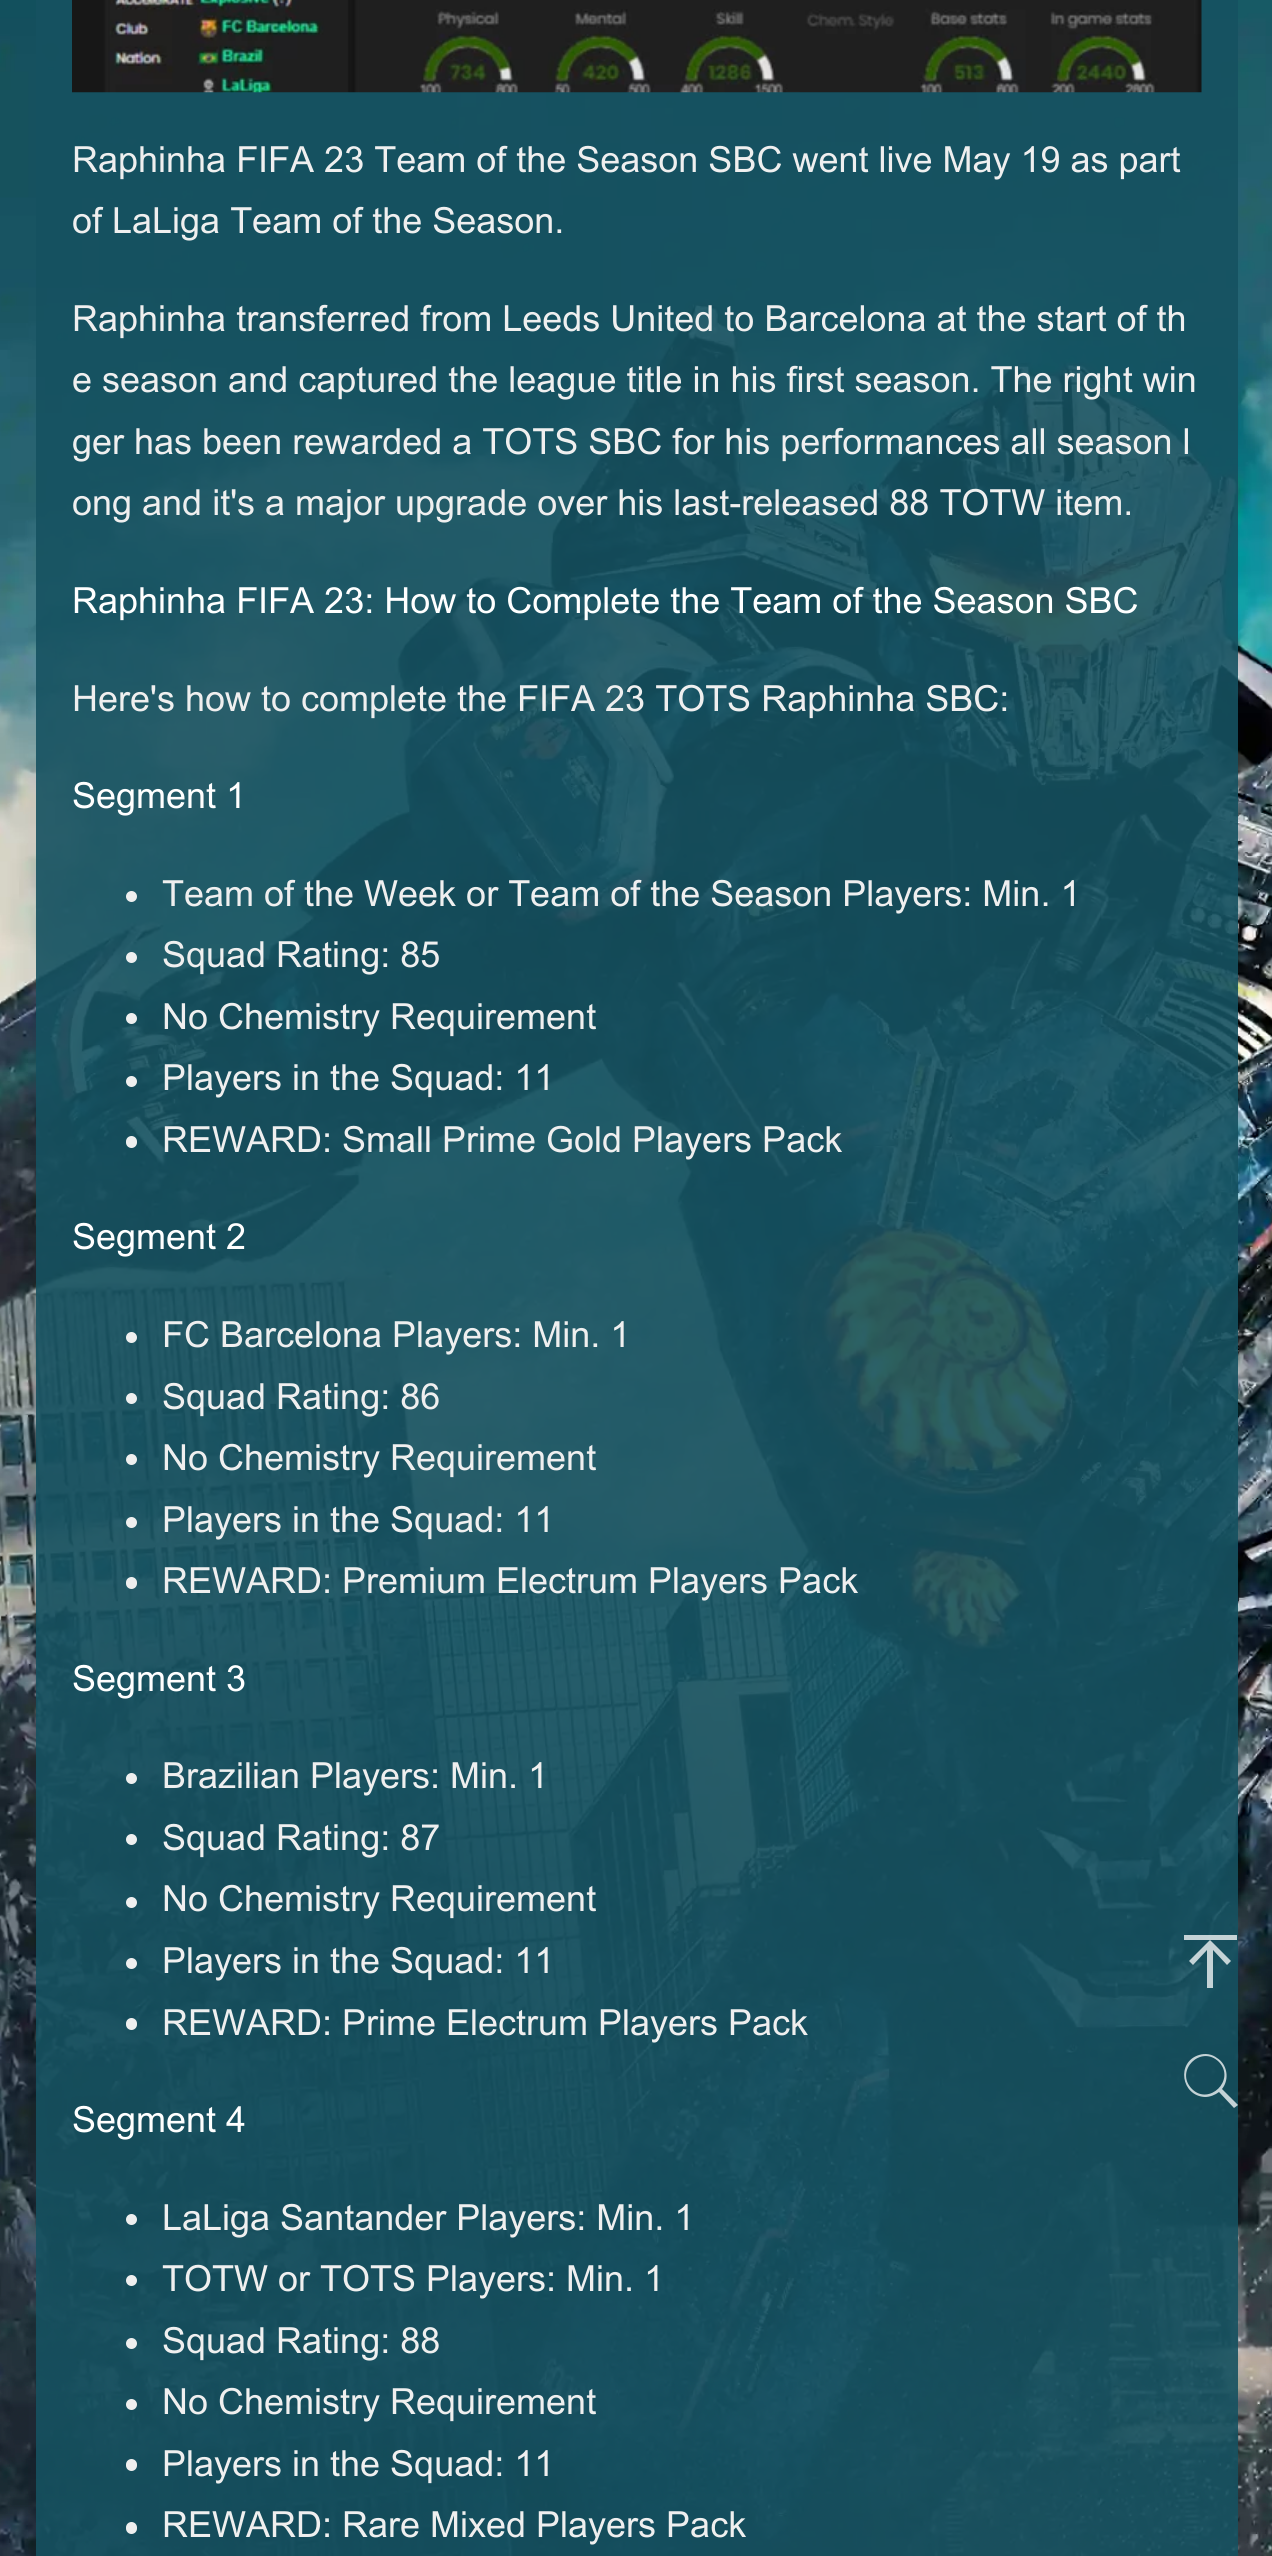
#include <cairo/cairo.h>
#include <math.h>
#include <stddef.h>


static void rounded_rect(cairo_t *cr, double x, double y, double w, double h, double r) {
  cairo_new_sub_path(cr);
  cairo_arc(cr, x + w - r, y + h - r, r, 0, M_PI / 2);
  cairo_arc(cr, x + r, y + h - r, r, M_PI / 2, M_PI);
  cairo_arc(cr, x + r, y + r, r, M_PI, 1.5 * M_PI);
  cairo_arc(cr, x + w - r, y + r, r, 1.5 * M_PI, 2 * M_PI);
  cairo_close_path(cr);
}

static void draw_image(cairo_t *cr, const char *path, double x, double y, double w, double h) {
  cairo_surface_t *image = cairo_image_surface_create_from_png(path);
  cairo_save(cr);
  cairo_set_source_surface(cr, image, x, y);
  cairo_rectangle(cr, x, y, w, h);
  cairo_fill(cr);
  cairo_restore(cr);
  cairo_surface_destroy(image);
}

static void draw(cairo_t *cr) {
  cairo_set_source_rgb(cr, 1, 1, 1);
  cairo_paint(cr);
  draw_image(cr, "images/1.png", 0, 0, 1272, 2556);
  draw_image(cr, "images/2.png", 72, 0, 1130, 93);
  cairo_set_source_rgb(cr, 239 / 255.0, 239 / 255.0, 239 / 255.0);
  cairo_arc(cr, 131.5, 896.5, 5.5, 0, 2 * M_PI);
  cairo_fill(cr);
  cairo_arc(cr, 131.5, 957.5, 5.5, 0, 2 * M_PI);
  cairo_fill(cr);
  cairo_arc(cr, 131.5, 1018.5, 5.5, 0, 2 * M_PI);
  cairo_fill(cr);
  cairo_arc(cr, 131.5, 1081.5, 5.5, 0, 2 * M_PI);
  cairo_fill(cr);
  rounded_rect(cr, 126, 1136, 11, 12, 5.5);
  cairo_fill(cr);
  cairo_arc(cr, 131.5, 1337.5, 5.5, 0, 2 * M_PI);
  cairo_fill(cr);
  cairo_arc(cr, 131.5, 1398.5, 5.5, 0, 2 * M_PI);
  cairo_fill(cr);
  cairo_arc(cr, 131.5, 1459.5, 5.5, 0, 2 * M_PI);
  cairo_fill(cr);
  cairo_arc(cr, 131.5, 1522.5, 5.5, 0, 2 * M_PI);
  cairo_fill(cr);
  rounded_rect(cr, 126, 1577, 11, 12, 5.5);
  cairo_fill(cr);
  cairo_arc(cr, 131.5, 1778.5, 5.5, 0, 2 * M_PI);
  cairo_fill(cr);
  cairo_arc(cr, 131.5, 1839.5, 5.5, 0, 2 * M_PI);
  cairo_fill(cr);
  cairo_arc(cr, 131.5, 1902.5, 5.5, 0, 2 * M_PI);
  cairo_fill(cr);
  cairo_arc(cr, 131.5, 1963.5, 5.5, 0, 2 * M_PI);
  cairo_fill(cr);
  rounded_rect(cr, 126, 2018, 11, 12, 5.5);
  cairo_fill(cr);
  cairo_arc(cr, 131.5, 2219.5, 5.5, 0, 2 * M_PI);
  cairo_fill(cr);
  cairo_arc(cr, 131.5, 2280.5, 5.5, 0, 2 * M_PI);
  cairo_fill(cr);
  cairo_arc(cr, 131.5, 2343.5, 5.5, 0, 2 * M_PI);
  cairo_fill(cr);
  cairo_arc(cr, 131.5, 2404.5, 5.5, 0, 2 * M_PI);
  cairo_fill(cr);
  rounded_rect(cr, 126, 2459, 11, 12, 5.5);
  cairo_fill(cr);
  rounded_rect(cr, 126, 2522, 11, 12, 5.5);
  cairo_fill(cr);
  cairo_save(cr);
  cairo_rectangle(cr, 1184, 1935, 54, 54);
  cairo_clip(cr);
  cairo_set_source_rgba(cr, 1, 1, 1, 0.75);
  cairo_new_path(cr);
  cairo_move_to(cr, 1189, 1961);
  cairo_line_to(cr, 1210, 1940);
  cairo_line_to(cr, 1231, 1961);
  cairo_line_to(cr, 1227, 1965);
  cairo_line_to(cr, 1213, 1950);
  cairo_line_to(cr, 1213, 1988);
  cairo_line_to(cr, 1207, 1988);
  cairo_line_to(cr, 1207, 1950);
  cairo_line_to(cr, 1193, 1965);
  cairo_close_path(cr);
  cairo_move_to(cr, 1210, 1940);
  cairo_line_to(cr, 1237, 1940);
  cairo_line_to(cr, 1237, 1935);
  cairo_line_to(cr, 1183, 1935);
  cairo_line_to(cr, 1183, 1940);
  cairo_close_path(cr);
  cairo_fill(cr);
  cairo_restore(cr);
  cairo_set_source_rgb(cr, 196 / 255.0, 210 / 255.0, 214 / 255.0);
  cairo_new_path(cr);
  cairo_move_to(cr, 1238, 2105);
  cairo_line_to(cr, 1234, 2108);
  cairo_line_to(cr, 1219, 2092);
  cairo_curve_to(cr, 1215, 2095, 1210, 2097, 1205, 2097);
  cairo_curve_to(cr, 1181, 2096, 1176, 2062, 1199, 2055);
  cairo_curve_to(cr, 1205, 2053, 1212, 2054, 1217, 2058);
  cairo_curve_to(cr, 1227, 2064, 1230, 2079, 1222, 2089);
  cairo_close_path(cr);
  cairo_move_to(cr, 1192, 2089);
  cairo_curve_to(cr, 1209, 2106, 1236, 2080, 1219, 2062);
  cairo_curve_to(cr, 1201, 2044, 1174, 2071, 1192, 2089);
  cairo_close_path(cr);
  cairo_fill(cr);
  cairo_select_font_face(cr, "Arial", CAIRO_FONT_SLANT_NORMAL, CAIRO_FONT_WEIGHT_NORMAL);
  cairo_set_font_size(cr, 36);
  cairo_set_source_rgb(cr, 239 / 255.0, 239 / 255.0, 239 / 255.0);
  cairo_move_to(cr, 72, 172);
  cairo_show_text(cr, "Raphinha FIFA 23 Team of the Season SBC went live May 19 as part");
  cairo_move_to(cr, 72, 233);
  cairo_show_text(cr, "of LaLiga Team of the Season.");
  cairo_move_to(cr, 72, 331);
  cairo_show_text(cr, "Raphinha transferred from Leeds United to Barcelona at the start of th");
  cairo_move_to(cr, 72, 392);
  cairo_show_text(cr, "e season and captured the league title in his first season. The right win");
  cairo_move_to(cr, 72, 454);
  cairo_show_text(cr, "ger has been rewarded a TOTS SBC for his performances all season l");
  cairo_move_to(cr, 72, 515);
  cairo_show_text(cr, "ong and it's a major upgrade over his last-released 88 TOTW item.");
  cairo_set_source_rgb(cr, 1, 1, 1);
  cairo_move_to(cr, 72, 613);
  cairo_show_text(cr, "Raphinha FIFA 23: How to Complete the Team of the Season SBC");
  cairo_set_source_rgb(cr, 239 / 255.0, 239 / 255.0, 239 / 255.0);
  cairo_move_to(cr, 72, 711);
  cairo_show_text(cr, "Here's how to complete the FIFA 23 TOTS Raphinha SBC:");
  cairo_set_source_rgb(cr, 1, 1, 1);
  cairo_move_to(cr, 72, 808);
  cairo_show_text(cr, "Segment 1");
  cairo_set_source_rgb(cr, 239 / 255.0, 239 / 255.0, 239 / 255.0);
  cairo_move_to(cr, 162, 906);
  cairo_show_text(cr, "Team of the Week or Team of the Season Players: Min. 1");
  cairo_move_to(cr, 162, 967);
  cairo_show_text(cr, "Squad Rating: 85");
  cairo_move_to(cr, 162, 1029);
  cairo_show_text(cr, "No Chemistry Requirement");
  cairo_move_to(cr, 162, 1090);
  cairo_show_text(cr, "Players in the Squad: 11");
  cairo_move_to(cr, 162, 1152);
  cairo_show_text(cr, "REWARD: Small Prime Gold Players Pack");
  cairo_set_source_rgb(cr, 1, 1, 1);
  cairo_move_to(cr, 72, 1249);
  cairo_show_text(cr, "Segment 2");
  cairo_set_source_rgb(cr, 239 / 255.0, 239 / 255.0, 239 / 255.0);
  cairo_move_to(cr, 162, 1347);
  cairo_show_text(cr, "FC Barcelona Players: Min. 1");
  cairo_move_to(cr, 162, 1409);
  cairo_show_text(cr, "Squad Rating: 86");
  cairo_move_to(cr, 162, 1470);
  cairo_show_text(cr, "No Chemistry Requirement");
  cairo_move_to(cr, 162, 1532);
  cairo_show_text(cr, "Players in the Squad: 11");
  cairo_move_to(cr, 162, 1593);
  cairo_show_text(cr, "REWARD: Premium Electrum Players Pack");
  cairo_set_source_rgb(cr, 1, 1, 1);
  cairo_move_to(cr, 72, 1691);
  cairo_show_text(cr, "Segment 3");
  cairo_set_source_rgb(cr, 239 / 255.0, 239 / 255.0, 239 / 255.0);
  cairo_move_to(cr, 162, 1788);
  cairo_show_text(cr, "Brazilian Players: Min. 1");
  cairo_move_to(cr, 162, 1850);
  cairo_show_text(cr, "Squad Rating: 87");
  cairo_move_to(cr, 162, 1911);
  cairo_show_text(cr, "No Chemistry Requirement");
  cairo_move_to(cr, 162, 1973);
  cairo_show_text(cr, "Players in the Squad: 11");
  cairo_move_to(cr, 162, 2035);
  cairo_show_text(cr, "REWARD: Prime Electrum Players Pack");
  cairo_set_source_rgb(cr, 1, 1, 1);
  cairo_move_to(cr, 72, 2132);
  cairo_show_text(cr, "Segment 4");
  cairo_set_source_rgb(cr, 239 / 255.0, 239 / 255.0, 239 / 255.0);
  cairo_move_to(cr, 162, 2230);
  cairo_show_text(cr, "LaLiga Santander Players: Min. 1");
  cairo_move_to(cr, 162, 2291);
  cairo_show_text(cr, "TOTW or TOTS Players: Min. 1");
  cairo_move_to(cr, 162, 2353);
  cairo_show_text(cr, "Squad Rating: 88");
  cairo_move_to(cr, 162, 2414);
  cairo_show_text(cr, "No Chemistry Requirement");
  cairo_move_to(cr, 162, 2476);
  cairo_show_text(cr, "Players in the Squad: 11");
  cairo_move_to(cr, 162, 2537);
  cairo_show_text(cr, "REWARD: Rare Mixed Players Pack");
}

int main(void) {
  cairo_surface_t *surface = cairo_image_surface_create(CAIRO_FORMAT_RGB24, 1272, 2556);
  cairo_t *cr = cairo_create(surface);
  cairo_font_options_t *options = cairo_font_options_create();
  cairo_font_options_set_hint_metrics(options, CAIRO_HINT_METRICS_OFF);
  cairo_font_options_set_hint_style(options, CAIRO_HINT_STYLE_NONE);
  cairo_set_font_options(cr, options);
  cairo_set_miter_limit(cr, 4);
  draw(cr);
  cairo_surface_write_to_png(surface, "out.png");
  cairo_font_options_destroy(options);
  cairo_destroy(cr);
  cairo_surface_destroy(surface);
  return 0;
}
